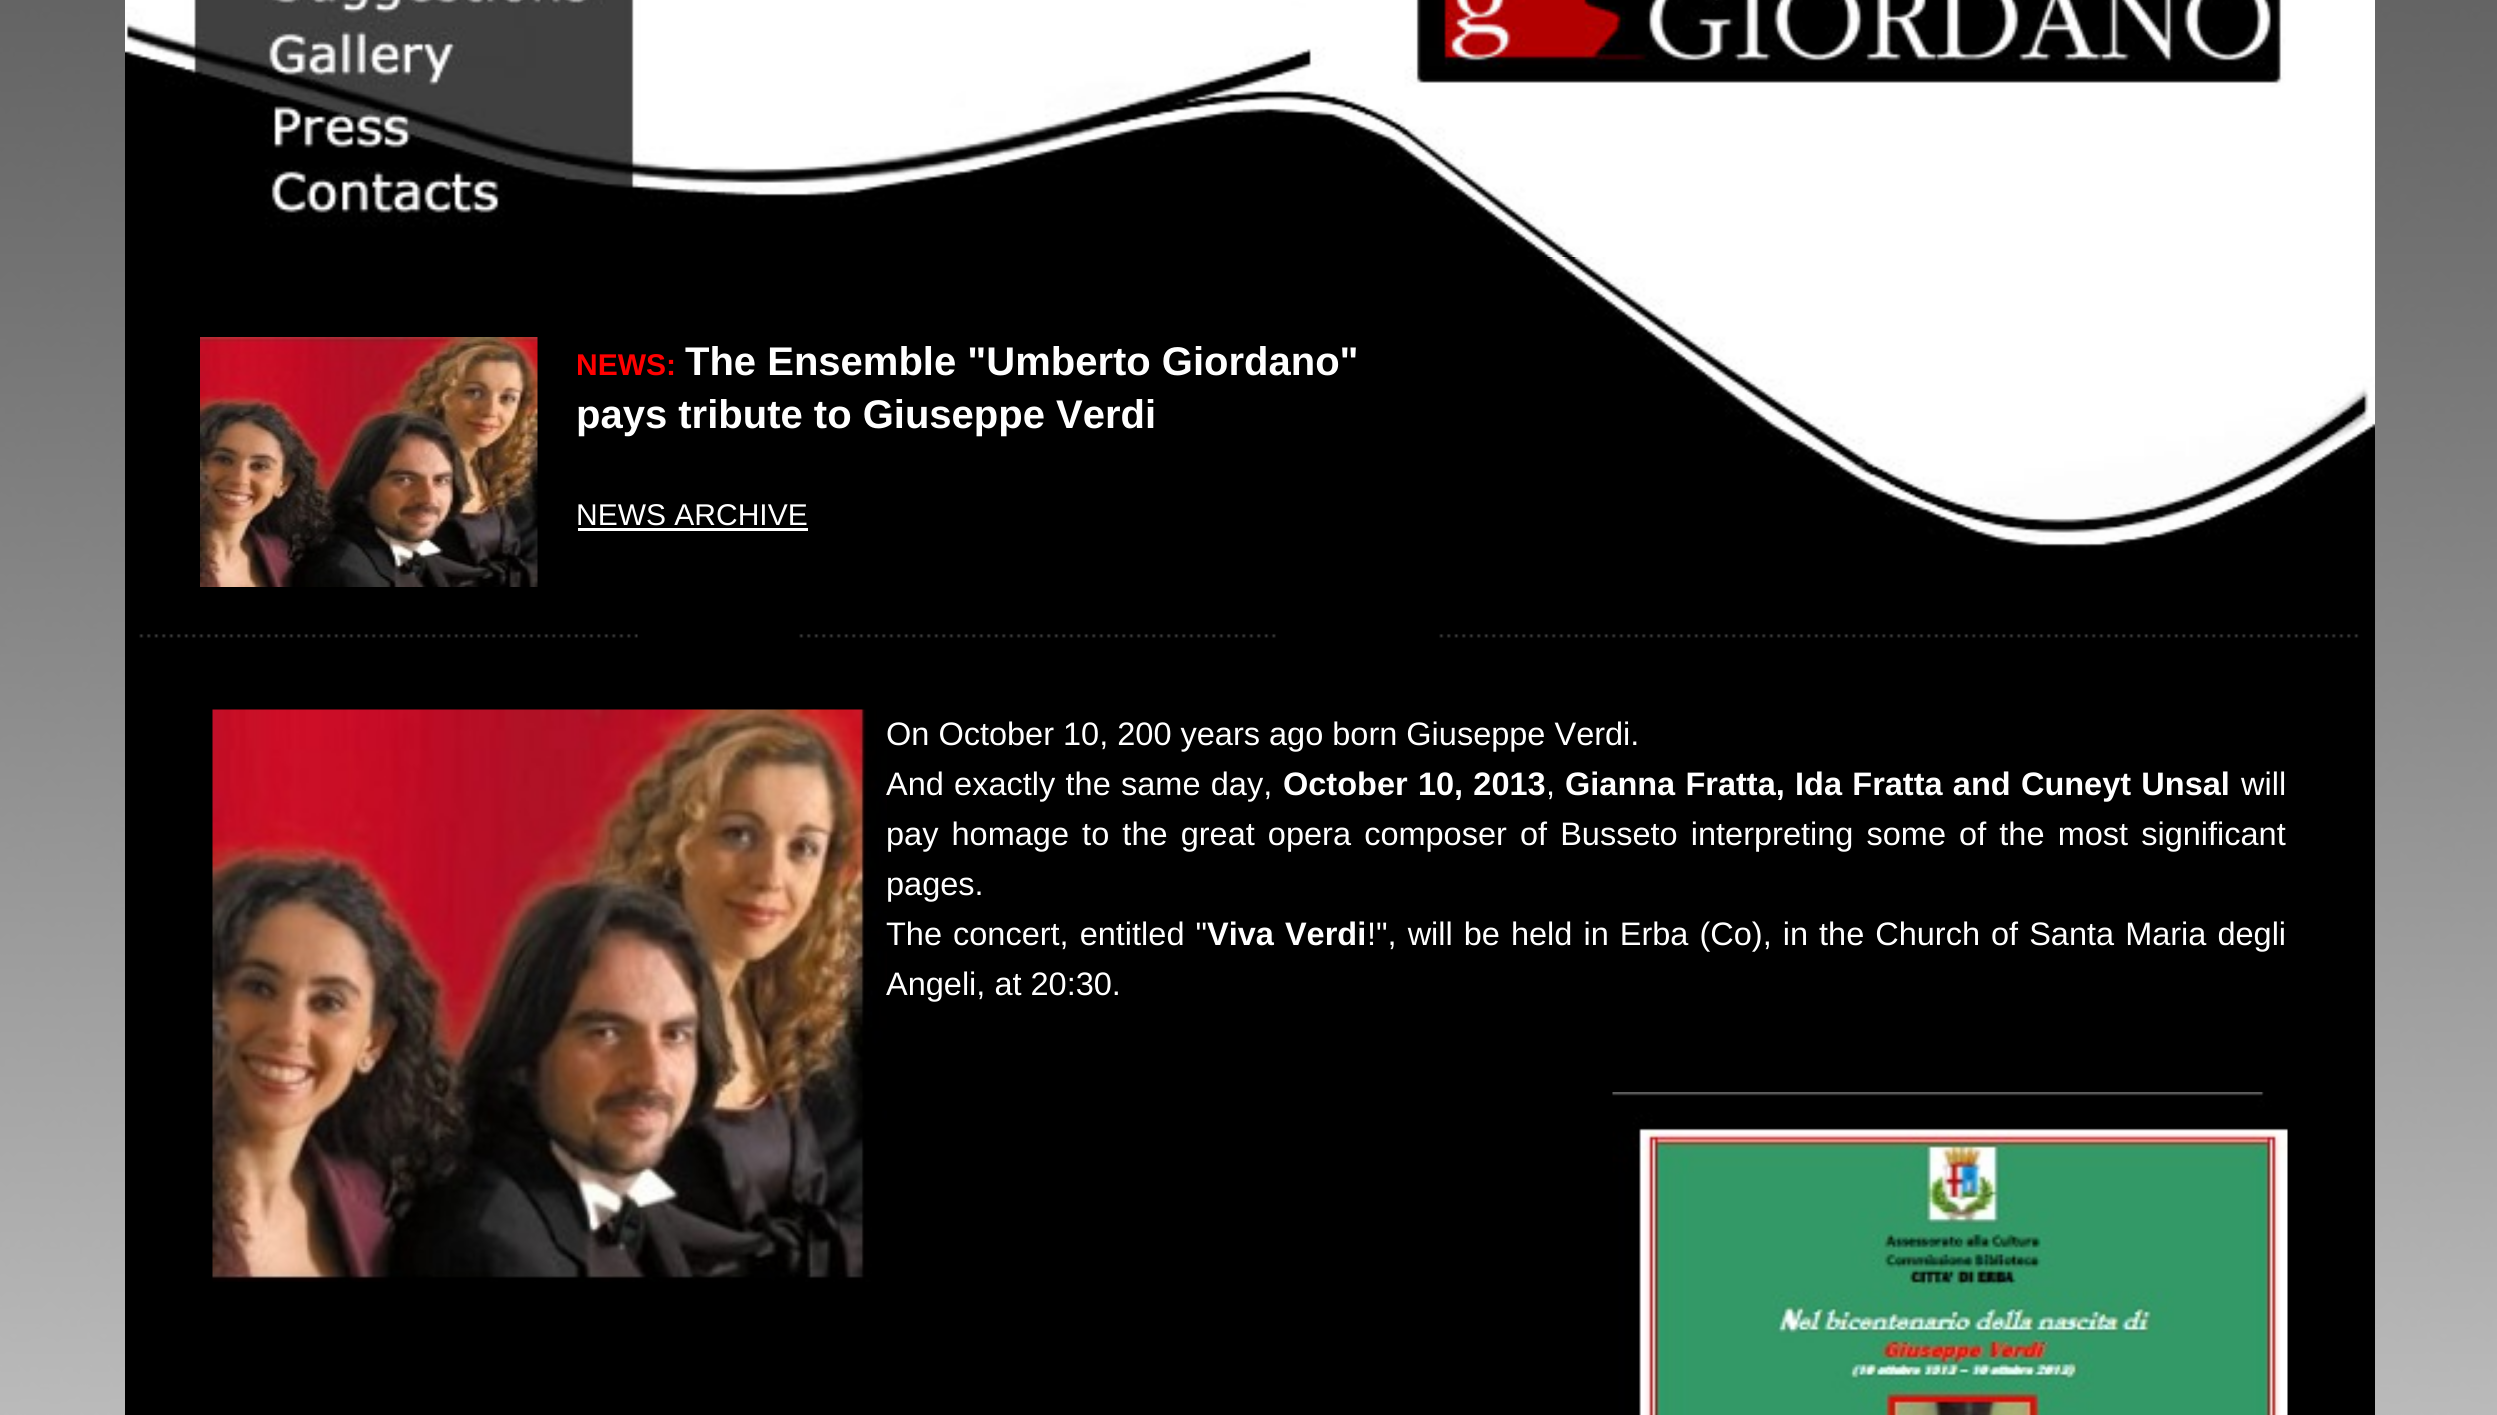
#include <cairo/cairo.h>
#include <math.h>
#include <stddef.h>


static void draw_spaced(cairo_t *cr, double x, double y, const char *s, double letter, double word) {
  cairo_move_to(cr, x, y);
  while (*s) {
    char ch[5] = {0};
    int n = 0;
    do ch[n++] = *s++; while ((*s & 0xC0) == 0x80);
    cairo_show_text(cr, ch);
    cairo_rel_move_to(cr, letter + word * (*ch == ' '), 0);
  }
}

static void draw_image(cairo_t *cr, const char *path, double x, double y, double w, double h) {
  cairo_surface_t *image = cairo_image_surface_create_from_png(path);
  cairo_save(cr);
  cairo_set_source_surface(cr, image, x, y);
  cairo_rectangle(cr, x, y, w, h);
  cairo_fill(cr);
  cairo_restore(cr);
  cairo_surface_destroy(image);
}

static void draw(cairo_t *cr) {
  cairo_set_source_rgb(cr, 1, 1, 1);
  cairo_paint(cr);
  draw_image(cr, "images/1.png", 0, 0, 2497, 1415);
  cairo_set_source_rgb(cr, 0, 0, 0);
  cairo_rectangle(cr, 125, 257, 1421, 1);
  cairo_fill(cr);
  draw_image(cr, "images/2.png", 125, 0, 2250, 257);
  cairo_rectangle(cr, 125, 258, 2250, 1157);
  cairo_fill(cr);
  draw_image(cr, "images/3.png", 1546, 257, 829, 294);
  draw_image(cr, "images/4.png", 200, 337, 338, 250);
  cairo_set_source_rgb(cr, 1, 1, 1);
  cairo_rectangle(cr, 578, 528, 230, 3);
  cairo_fill(cr);
  draw_image(cr, "images/5.png", 139, 634, 499, 4);
  draw_image(cr, "images/6.png", 799, 634, 477, 4);
  draw_image(cr, "images/7.png", 1439, 634, 920, 4);
  draw_image(cr, "images/8.png", 212, 709, 675, 573);
  draw_image(cr, "images/9.png", 1612, 1092, 676, 323);
  cairo_select_font_face(cr, "Liberation Sans", CAIRO_FONT_SLANT_NORMAL, CAIRO_FONT_WEIGHT_BOLD);
  cairo_set_font_size(cr, 30);
  cairo_set_source_rgb(cr, 1, 0, 0);
  cairo_move_to(cr, 576, 375);
  cairo_show_text(cr, "NEWS:");
  cairo_set_font_size(cr, 40);
  cairo_set_source_rgb(cr, 1, 1, 1);
  cairo_move_to(cr, 685, 375);
  cairo_show_text(cr, "The Ensemble \"Umberto Giordano\"");
  cairo_move_to(cr, 576, 428);
  cairo_show_text(cr, "pays tribute to Giuseppe Verdi");
  cairo_select_font_face(cr, "Liberation Sans", CAIRO_FONT_SLANT_NORMAL, CAIRO_FONT_WEIGHT_NORMAL);
  cairo_set_font_size(cr, 30);
  cairo_move_to(cr, 576, 525);
  cairo_show_text(cr, "NEWS ARCHIVE");
  cairo_set_font_size(cr, 32.5);
  cairo_move_to(cr, 886, 745);
  cairo_show_text(cr, "On October 10, 200 years ago born Giuseppe Verdi.");
  draw_spaced(cr, 886, 795, "And exactly the same day,", 0, 1.25);
  cairo_select_font_face(cr, "Liberation Sans", CAIRO_FONT_SLANT_NORMAL, CAIRO_FONT_WEIGHT_BOLD);
  draw_spaced(cr, 1283, 795, "October 10, 2013", 0, 1.25);
  cairo_select_font_face(cr, "Liberation Sans", CAIRO_FONT_SLANT_NORMAL, CAIRO_FONT_WEIGHT_NORMAL);
  cairo_move_to(cr, 1546, 795);
  cairo_show_text(cr, ",");
  cairo_select_font_face(cr, "Liberation Sans", CAIRO_FONT_SLANT_NORMAL, CAIRO_FONT_WEIGHT_BOLD);
  draw_spaced(cr, 1565, 795, "Gianna Fratta, Ida Fratta and Cuneyt Unsal", 0, 1.25);
  cairo_select_font_face(cr, "Liberation Sans", CAIRO_FONT_SLANT_NORMAL, CAIRO_FONT_WEIGHT_NORMAL);
  cairo_move_to(cr, 2241, 795);
  cairo_show_text(cr, "will");
  draw_spaced(cr, 886, 845, "pay homage to the great opera composer of Busseto interpreting some of the most significant", 0, 4.1);
  cairo_move_to(cr, 886, 895);
  cairo_show_text(cr, "pages.");
  draw_spaced(cr, 886, 945, "The concert, entitled \"", 0, 2);
  cairo_select_font_face(cr, "Liberation Sans", CAIRO_FONT_SLANT_NORMAL, CAIRO_FONT_WEIGHT_BOLD);
  draw_spaced(cr, 1207, 945, "Viva Verdi", 0, 2);
  cairo_select_font_face(cr, "Liberation Sans", CAIRO_FONT_SLANT_NORMAL, CAIRO_FONT_WEIGHT_NORMAL);
  draw_spaced(cr, 1367, 945, "!\", will be held in Erba (Co), in the Church of Santa Maria degli", 0, 2);
  cairo_move_to(cr, 886, 995);
  cairo_show_text(cr, "Angeli, at 20:30.");
}

int main(void) {
  cairo_surface_t *surface = cairo_image_surface_create(CAIRO_FORMAT_RGB24, 2497, 1415);
  cairo_t *cr = cairo_create(surface);
  cairo_font_options_t *options = cairo_font_options_create();
  cairo_font_options_set_hint_metrics(options, CAIRO_HINT_METRICS_OFF);
  cairo_font_options_set_hint_style(options, CAIRO_HINT_STYLE_NONE);
  cairo_set_font_options(cr, options);
  cairo_set_miter_limit(cr, 4);
  draw(cr);
  cairo_surface_write_to_png(surface, "out.png");
  cairo_font_options_destroy(options);
  cairo_destroy(cr);
  cairo_surface_destroy(surface);
  return 0;
}
